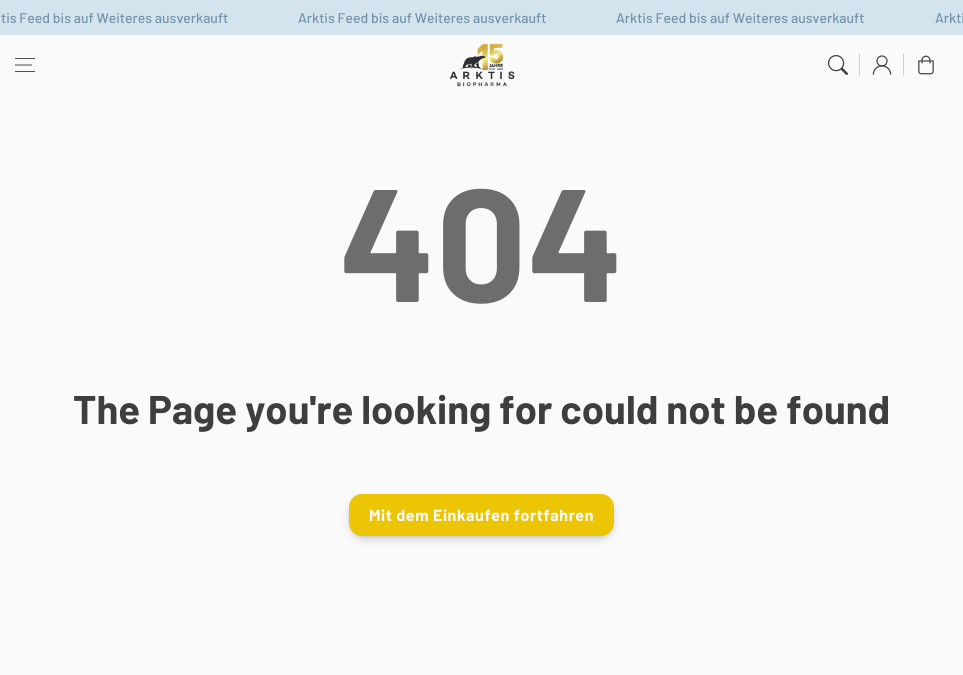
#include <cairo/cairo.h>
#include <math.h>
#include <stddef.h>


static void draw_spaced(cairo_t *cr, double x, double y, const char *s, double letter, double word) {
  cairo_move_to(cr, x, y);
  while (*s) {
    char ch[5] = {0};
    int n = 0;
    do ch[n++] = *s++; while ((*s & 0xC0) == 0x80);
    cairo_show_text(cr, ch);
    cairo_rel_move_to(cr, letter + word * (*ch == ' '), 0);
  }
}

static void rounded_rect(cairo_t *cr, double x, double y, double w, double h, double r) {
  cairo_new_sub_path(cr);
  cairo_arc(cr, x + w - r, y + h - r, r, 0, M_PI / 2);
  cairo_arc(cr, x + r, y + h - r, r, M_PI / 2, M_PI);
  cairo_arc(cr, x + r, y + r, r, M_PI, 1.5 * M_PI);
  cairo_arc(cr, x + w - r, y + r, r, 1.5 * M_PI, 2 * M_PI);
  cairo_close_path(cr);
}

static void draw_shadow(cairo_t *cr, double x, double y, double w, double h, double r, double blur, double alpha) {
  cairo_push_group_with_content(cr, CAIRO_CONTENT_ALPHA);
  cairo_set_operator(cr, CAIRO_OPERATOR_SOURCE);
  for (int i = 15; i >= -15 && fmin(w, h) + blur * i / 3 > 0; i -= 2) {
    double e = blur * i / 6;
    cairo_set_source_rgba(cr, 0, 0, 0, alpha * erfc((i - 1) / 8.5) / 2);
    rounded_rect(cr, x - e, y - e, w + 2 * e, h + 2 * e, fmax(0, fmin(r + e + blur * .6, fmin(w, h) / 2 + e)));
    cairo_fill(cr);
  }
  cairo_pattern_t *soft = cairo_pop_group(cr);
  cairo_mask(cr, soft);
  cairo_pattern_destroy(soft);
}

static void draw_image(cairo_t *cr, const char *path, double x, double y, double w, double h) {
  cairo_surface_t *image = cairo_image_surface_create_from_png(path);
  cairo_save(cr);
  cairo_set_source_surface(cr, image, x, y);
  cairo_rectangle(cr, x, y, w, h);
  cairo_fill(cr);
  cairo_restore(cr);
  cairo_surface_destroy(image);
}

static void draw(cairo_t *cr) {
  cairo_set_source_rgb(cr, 250 / 255.0, 250 / 255.0, 250 / 255.0);
  cairo_paint(cr);
  cairo_set_source_rgb(cr, 212 / 255.0, 228 / 255.0, 239 / 255.0);
  cairo_rectangle(cr, 0, 0, 963, 35);
  cairo_fill(cr);
  cairo_new_path(cr);
  cairo_move_to(cr, 15, 71.5);
  cairo_line_to(cr, 35, 71.5);
  cairo_move_to(cr, 15, 65);
  cairo_line_to(cr, 32, 65);
  cairo_move_to(cr, 15, 58.5);
  cairo_line_to(cr, 35, 58.5);
  cairo_set_source_rgb(cr, 62 / 255.0, 62 / 255.0, 62 / 255.0);
  cairo_set_line_width(cr, 0.9);
  cairo_stroke(cr);
  draw_image(cr, "images/1.png", 449, 43, 66, 44);
  draw_image(cr, "images/2.png", 828, 55, 20, 20);
  cairo_set_source_rgb(cr, 209 / 255.0, 209 / 255.0, 209 / 255.0);
  cairo_rectangle(cr, 859, 54, 1, 22);
  cairo_fill(cr);
  draw_image(cr, "images/3.png", 872, 55, 20, 20);
  cairo_rectangle(cr, 903, 54, 1, 22);
  cairo_fill(cr);
  draw_image(cr, "images/4.png", 918, 55, 16, 20);
  cairo_set_source_rgb(cr, 0, 0, 0);
  draw_shadow(cr, 359, 508, 245, 22, 3, 7, 1);
  cairo_set_source_rgb(cr, 236 / 255.0, 197 / 255.0, 5 / 255.0);
  rounded_rect(cr, 349, 494, 265, 42, 13);
  cairo_fill(cr);
  cairo_select_font_face(cr, "Barlow Medium", CAIRO_FONT_SLANT_NORMAL, CAIRO_FONT_WEIGHT_NORMAL);
  cairo_set_font_size(cr, 14);
  cairo_set_source_rgb(cr, 115 / 255.0, 148 / 255.0, 169 / 255.0);
  cairo_move_to(cr, 1, 23);
  cairo_show_text(cr, "tis Feed bis auf Weiteres ausverkauft");
  cairo_move_to(cr, 298, 23);
  cairo_show_text(cr, "Arktis Feed bis auf Weiteres ausverkauft");
  cairo_move_to(cr, 616, 23);
  cairo_show_text(cr, "Arktis Feed bis auf Weiteres ausverkauft");
  cairo_move_to(cr, 935, 23);
  cairo_show_text(cr, "Arkti");
  cairo_select_font_face(cr, "Barlow", CAIRO_FONT_SLANT_NORMAL, CAIRO_FONT_WEIGHT_BOLD);
  cairo_set_font_size(cr, 160);
  cairo_set_source_rgb(cr, 109 / 255.0, 109 / 255.0, 109 / 255.0);
  cairo_move_to(cr, 339, 302);
  cairo_show_text(cr, "404");
  cairo_set_font_size(cr, 40);
  cairo_set_source_rgb(cr, 62 / 255.0, 62 / 255.0, 62 / 255.0);
  cairo_move_to(cr, 73, 424);
  cairo_show_text(cr, "The Page you're looking for could not be found");
  cairo_set_font_size(cr, 16);
  cairo_set_source_rgb(cr, 250 / 255.0, 250 / 255.0, 250 / 255.0);
  draw_spaced(cr, 369, 521, "Mit dem Einkaufen fortfahren", 0.6, 0);
}

int main(void) {
  cairo_surface_t *surface = cairo_image_surface_create(CAIRO_FORMAT_RGB24, 963, 675);
  cairo_t *cr = cairo_create(surface);
  cairo_font_options_t *options = cairo_font_options_create();
  cairo_font_options_set_hint_metrics(options, CAIRO_HINT_METRICS_OFF);
  cairo_font_options_set_hint_style(options, CAIRO_HINT_STYLE_NONE);
  cairo_set_font_options(cr, options);
  cairo_set_miter_limit(cr, 4);
  draw(cr);
  cairo_surface_write_to_png(surface, "out.png");
  cairo_font_options_destroy(options);
  cairo_destroy(cr);
  cairo_surface_destroy(surface);
  return 0;
}
